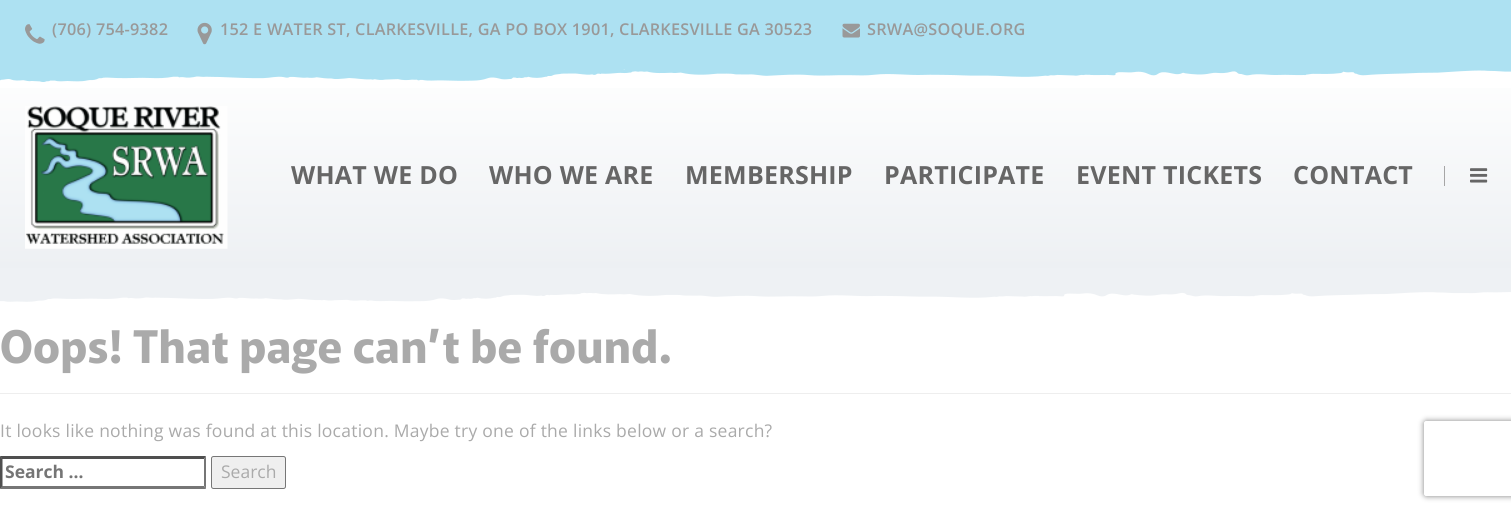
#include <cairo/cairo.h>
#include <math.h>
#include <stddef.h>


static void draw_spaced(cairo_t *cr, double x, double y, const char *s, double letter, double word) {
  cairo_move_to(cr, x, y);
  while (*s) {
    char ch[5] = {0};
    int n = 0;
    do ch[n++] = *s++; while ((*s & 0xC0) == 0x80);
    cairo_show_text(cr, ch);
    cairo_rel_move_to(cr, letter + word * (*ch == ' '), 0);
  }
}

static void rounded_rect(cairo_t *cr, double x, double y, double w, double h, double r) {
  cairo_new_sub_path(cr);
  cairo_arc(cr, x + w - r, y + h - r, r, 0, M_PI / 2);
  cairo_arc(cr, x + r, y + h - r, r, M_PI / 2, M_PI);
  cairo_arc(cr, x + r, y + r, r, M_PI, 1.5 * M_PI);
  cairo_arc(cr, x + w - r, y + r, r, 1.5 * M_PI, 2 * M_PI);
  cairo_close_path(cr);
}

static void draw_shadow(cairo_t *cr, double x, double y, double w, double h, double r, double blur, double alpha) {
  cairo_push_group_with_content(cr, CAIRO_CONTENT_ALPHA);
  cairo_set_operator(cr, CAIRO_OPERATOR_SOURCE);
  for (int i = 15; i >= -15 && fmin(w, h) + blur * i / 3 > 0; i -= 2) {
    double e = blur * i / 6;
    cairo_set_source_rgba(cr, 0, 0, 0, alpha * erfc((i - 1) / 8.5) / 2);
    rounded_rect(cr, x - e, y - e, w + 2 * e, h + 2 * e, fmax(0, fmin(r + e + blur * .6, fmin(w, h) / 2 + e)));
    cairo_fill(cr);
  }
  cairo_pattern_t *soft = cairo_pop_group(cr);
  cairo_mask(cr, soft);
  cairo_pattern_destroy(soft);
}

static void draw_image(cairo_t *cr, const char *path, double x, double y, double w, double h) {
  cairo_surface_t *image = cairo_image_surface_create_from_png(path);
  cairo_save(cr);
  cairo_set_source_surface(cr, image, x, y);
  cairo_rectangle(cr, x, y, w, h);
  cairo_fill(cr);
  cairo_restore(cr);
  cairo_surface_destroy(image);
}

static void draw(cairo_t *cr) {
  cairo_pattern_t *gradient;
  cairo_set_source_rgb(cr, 1, 1, 1);
  cairo_paint(cr);
  cairo_set_source_rgb(cr, 173 / 255.0, 225 / 255.0, 242 / 255.0);
  cairo_rectangle(cr, 0, 0, 1511, 59);
  cairo_fill(cr);
  draw_image(cr, "images/1.png", 25, 24, 20, 20);
  draw_image(cr, "images/2.png", 197, 22, 15, 23);
  draw_image(cr, "images/3.png", 842, 23, 18, 15);
  draw_image(cr, "images/4.png", 0, 59, 1511, 23);
  gradient = cairo_pattern_create_linear(756, 268, 756, 59);
  cairo_pattern_add_color_stop_rgba(gradient, 0, 237 / 255.0, 240 / 255.0, 243 / 255.0, 1);
  cairo_pattern_add_color_stop_rgba(gradient, 1, 1, 1, 1, 1);
  cairo_set_source(cr, gradient);
  cairo_pattern_destroy(gradient);
  cairo_rectangle(cr, 0, 88, 1511, 180);
  cairo_fill(cr);
  draw_image(cr, "images/5.png", 25, 106, 203, 143);
  cairo_set_source_rgb(cr, 166 / 255.0, 166 / 255.0, 166 / 255.0);
  cairo_rectangle(cr, 1444, 166, 1, 20);
  cairo_fill(cr);
  draw_image(cr, "images/6.png", 1470, 168, 18, 15);
  draw_image(cr, "images/7.png", 0, 268, 1511, 34);
  cairo_set_source_rgb(cr, 238 / 255.0, 238 / 255.0, 238 / 255.0);
  cairo_rectangle(cr, 0, 393, 1511, 1);
  cairo_fill(cr);
  cairo_set_source_rgb(cr, 79 / 255.0, 79 / 255.0, 79 / 255.0);
  cairo_new_path(cr);
  cairo_move_to(cr, 0, 456);
  cairo_line_to(cr, 206, 456);
  cairo_line_to(cr, 204, 459);
  cairo_line_to(cr, 2, 459);
  cairo_close_path(cr);
  cairo_fill(cr);
  cairo_set_source_rgb(cr, 118 / 255.0, 118 / 255.0, 118 / 255.0);
  cairo_new_path(cr);
  cairo_move_to(cr, 206, 456);
  cairo_line_to(cr, 206, 489);
  cairo_line_to(cr, 204, 486);
  cairo_line_to(cr, 204, 459);
  cairo_close_path(cr);
  cairo_fill(cr);
  cairo_new_path(cr);
  cairo_move_to(cr, 206, 489);
  cairo_line_to(cr, 0, 489);
  cairo_line_to(cr, 2, 486);
  cairo_line_to(cr, 204, 486);
  cairo_close_path(cr);
  cairo_fill(cr);
  cairo_set_source_rgb(cr, 79 / 255.0, 79 / 255.0, 79 / 255.0);
  cairo_new_path(cr);
  cairo_move_to(cr, 0, 489);
  cairo_line_to(cr, 0, 456);
  cairo_line_to(cr, 2.5, 459);
  cairo_line_to(cr, 2.5, 486);
  cairo_close_path(cr);
  cairo_fill(cr);
  cairo_set_source_rgb(cr, 239 / 255.0, 239 / 255.0, 239 / 255.0);
  rounded_rect(cr, 211.5, 456.5, 74, 32, 2);
  cairo_fill_preserve(cr);
  cairo_set_source_rgb(cr, 118 / 255.0, 118 / 255.0, 118 / 255.0);
  cairo_set_line_width(cr, 1);
  cairo_stroke(cr);
  cairo_save(cr);
  cairo_set_fill_rule(cr, CAIRO_FILL_RULE_EVEN_ODD);
  cairo_new_path(cr);
  cairo_move_to(cr, 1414, 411);
  cairo_line_to(cr, 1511, 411);
  cairo_line_to(cr, 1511, 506);
  cairo_line_to(cr, 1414, 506);
  cairo_close_path(cr);
  cairo_move_to(cr, 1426.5, 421);
  cairo_line_to(cr, 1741.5, 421);
  cairo_curve_to(cr, 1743, 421, 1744, 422, 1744, 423.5);
  cairo_line_to(cr, 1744, 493.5);
  cairo_curve_to(cr, 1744, 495, 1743, 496, 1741.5, 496);
  cairo_line_to(cr, 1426.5, 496);
  cairo_curve_to(cr, 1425, 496, 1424, 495, 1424, 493.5);
  cairo_line_to(cr, 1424, 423.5);
  cairo_curve_to(cr, 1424, 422, 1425, 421, 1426.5, 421);
  cairo_close_path(cr);
  cairo_clip(cr);
  cairo_set_source_rgb(cr, 128 / 255.0, 128 / 255.0, 128 / 255.0);
  draw_shadow(cr, 1424, 421, 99, 75, 2.5, 3, 1);
  cairo_restore(cr);
  cairo_select_font_face(cr, "Open Sans SemiBold", CAIRO_FONT_SLANT_NORMAL, CAIRO_FONT_WEIGHT_NORMAL);
  cairo_set_font_size(cr, 16.25);
  cairo_set_source_rgb(cr, 153 / 255.0, 153 / 255.0, 153 / 255.0);
  draw_spaced(cr, 52, 35, "(706) 754-9382", 0.25, 0);
  draw_spaced(cr, 220, 35, "152 E WATER ST, CLARKESVILLE, GA PO BOX 1901, CLARKESVILLE GA 30523", 0.25, 0);
  draw_spaced(cr, 867, 35, "SRWA@SOQUE.ORG", 0.25, 0);
  cairo_select_font_face(cr, "Open Sans", CAIRO_FONT_SLANT_NORMAL, CAIRO_FONT_WEIGHT_BOLD);
  cairo_set_font_size(cr, 25);
  cairo_set_source_rgb(cr, 102 / 255.0, 102 / 255.0, 102 / 255.0);
  draw_spaced(cr, 291, 184, "WHAT WE DO", 0.25, 0);
  draw_spaced(cr, 489, 184, "WHO WE ARE", 0.25, 0);
  draw_spaced(cr, 685, 184, "MEMBERSHIP", 0.25, 0);
  draw_spaced(cr, 884, 184, "PARTICIPATE", 0.25, 0);
  draw_spaced(cr, 1076, 184, "EVENT TICKETS", 0.25, 0);
  draw_spaced(cr, 1293, 184, "CONTACT", 0.25, 0);
  cairo_select_font_face(cr, "Murecho", CAIRO_FONT_SLANT_NORMAL, CAIRO_FONT_WEIGHT_BOLD);
  cairo_set_font_size(cr, 45);
  cairo_set_source_rgb(cr, 170 / 255.0, 170 / 255.0, 170 / 255.0);
  draw_spaced(cr, 0, 363, "Oops! That page can’t be found.", 0.25, 0);
  cairo_select_font_face(cr, "Open Sans", CAIRO_FONT_SLANT_NORMAL, CAIRO_FONT_WEIGHT_NORMAL);
  cairo_set_font_size(cr, 17.5);
  draw_spaced(cr, 0, 437, "It looks like nothing was found at this location. Maybe try one of the links below or a search?", 0.25, 0);
  cairo_select_font_face(cr, "Open Sans", CAIRO_FONT_SLANT_NORMAL, CAIRO_FONT_WEIGHT_BOLD);
  cairo_set_source_rgb(cr, 117 / 255.0, 117 / 255.0, 117 / 255.0);
  cairo_move_to(cr, 5, 478);
  cairo_show_text(cr, "Search …");
  cairo_select_font_face(cr, "Open Sans", CAIRO_FONT_SLANT_NORMAL, CAIRO_FONT_WEIGHT_NORMAL);
  cairo_set_source_rgb(cr, 170 / 255.0, 170 / 255.0, 170 / 255.0);
  cairo_move_to(cr, 221, 478);
  cairo_show_text(cr, "Search");
}

int main(void) {
  cairo_surface_t *surface = cairo_image_surface_create(CAIRO_FORMAT_RGB24, 1511, 513);
  cairo_t *cr = cairo_create(surface);
  cairo_font_options_t *options = cairo_font_options_create();
  cairo_font_options_set_hint_metrics(options, CAIRO_HINT_METRICS_OFF);
  cairo_font_options_set_hint_style(options, CAIRO_HINT_STYLE_NONE);
  cairo_set_font_options(cr, options);
  cairo_set_miter_limit(cr, 4);
  draw(cr);
  cairo_surface_write_to_png(surface, "out.png");
  cairo_font_options_destroy(options);
  cairo_destroy(cr);
  cairo_surface_destroy(surface);
  return 0;
}
